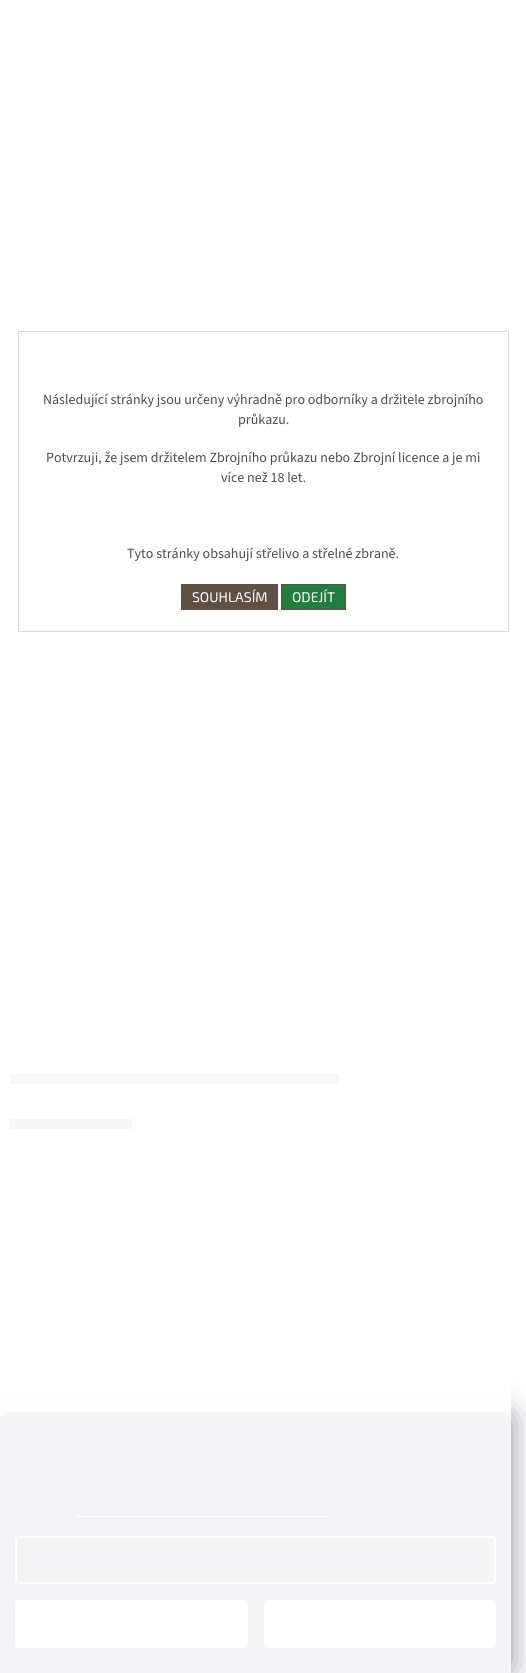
#include <cairo/cairo.h>
#include <math.h>
#include <stddef.h>


static void rounded_rect(cairo_t *cr, double x, double y, double w, double h, double r) {
  cairo_new_sub_path(cr);
  cairo_arc(cr, x + w - r, y + h - r, r, 0, M_PI / 2);
  cairo_arc(cr, x + r, y + h - r, r, M_PI / 2, M_PI);
  cairo_arc(cr, x + r, y + r, r, M_PI, 1.5 * M_PI);
  cairo_arc(cr, x + w - r, y + r, r, 1.5 * M_PI, 2 * M_PI);
  cairo_close_path(cr);
}

static void draw_shadow(cairo_t *cr, double x, double y, double w, double h, double r, double blur, double alpha) {
  cairo_push_group_with_content(cr, CAIRO_CONTENT_ALPHA);
  cairo_set_operator(cr, CAIRO_OPERATOR_SOURCE);
  for (int i = 15; i >= -15 && fmin(w, h) + blur * i / 3 > 0; i -= 2) {
    double e = blur * i / 6;
    cairo_set_source_rgba(cr, 0, 0, 0, alpha * erfc((i - 1) / 8.5) / 2);
    rounded_rect(cr, x - e, y - e, w + 2 * e, h + 2 * e, fmax(0, fmin(r + e + blur * .6, fmin(w, h) / 2 + e)));
    cairo_fill(cr);
  }
  cairo_pattern_t *soft = cairo_pop_group(cr);
  cairo_mask(cr, soft);
  cairo_pattern_destroy(soft);
}

static void draw(cairo_t *cr) {
  cairo_set_source_rgb(cr, 1, 1, 1);
  cairo_paint(cr);
  cairo_set_source_rgb(cr, 218 / 255.0, 218 / 255.0, 218 / 255.0);
  cairo_rectangle(cr, 0, 52, 511, 1);
  cairo_fill(cr);
  cairo_set_source_rgb(cr, 96 / 255.0, 80 / 255.0, 68 / 255.0);
  cairo_rectangle(cr, 10, 1074, 329, 10);
  cairo_fill(cr);
  cairo_rectangle(cr, 10, 1119, 122, 10);
  cairo_fill(cr);
  cairo_set_source_rgb(cr, 27 / 255.0, 25 / 255.0, 57 / 255.0);
  draw_shadow(cr, 0, 1412, 511, 261, 8, 15, 0.5);
  cairo_set_source_rgb(cr, 26 / 255.0, 25 / 255.0, 55 / 255.0);
  cairo_new_path(cr);
  cairo_move_to(cr, 8, 1412);
  cairo_line_to(cr, 503, 1412);
  cairo_curve_to(cr, 507.5, 1412, 511, 1415.5, 511, 1420);
  cairo_line_to(cr, 511, 1673);
  cairo_line_to(cr, 0, 1673);
  cairo_line_to(cr, 0, 1420);
  cairo_curve_to(cr, 0, 1415.5, 3.5, 1412, 8, 1412);
  cairo_close_path(cr);
  cairo_fill(cr);
  cairo_set_source_rgb(cr, 248 / 255.0, 250 / 255.0, 251 / 255.0);
  cairo_rectangle(cr, 76, 1516, 251, 1);
  cairo_fill(cr);
  rounded_rect(cr, 16, 1537, 479, 46, 3);
  cairo_stroke(cr);
  rounded_rect(cr, 15, 1600, 233, 48, 4);
  cairo_fill(cr);
  rounded_rect(cr, 264, 1600, 232, 48, 4);
  cairo_fill(cr);
  cairo_set_source_rgba(cr, 1, 1, 1, 0.95);
  cairo_rectangle(cr, 0, 52, 511, 1621);
  cairo_fill(cr);
  cairo_rectangle(cr, 18.5, 331.5, 490, 300);
  cairo_set_source_rgb(cr, 218 / 255.0, 218 / 255.0, 218 / 255.0);
  cairo_set_line_width(cr, 1);
  cairo_stroke(cr);
  cairo_set_source_rgb(cr, 96 / 255.0, 80 / 255.0, 68 / 255.0);
  cairo_rectangle(cr, 181, 584, 97, 26);
  cairo_fill(cr);
  cairo_set_source_rgb(cr, 34 / 255.0, 125 / 255.0, 63 / 255.0);
  cairo_rectangle(cr, 281.5, 584.5, 64, 25);
  cairo_fill_preserve(cr);
  cairo_set_source_rgb(cr, 96 / 255.0, 80 / 255.0, 68 / 255.0);
  cairo_stroke(cr);
  cairo_select_font_face(cr, "Source Sans 3", CAIRO_FONT_SLANT_NORMAL, CAIRO_FONT_WEIGHT_NORMAL);
  cairo_set_font_size(cr, 14);
  cairo_set_source_rgb(cr, 77 / 255.0, 77 / 255.0, 77 / 255.0);
  cairo_move_to(cr, 43, 404);
  cairo_show_text(cr, "Následující stránky jsou určeny výhradně pro odborníky a držitele zbrojního");
  cairo_move_to(cr, 238, 424);
  cairo_show_text(cr, "průkazu.");
  cairo_move_to(cr, 46, 462);
  cairo_show_text(cr, "Potvrzuji, že jsem držitelem Zbrojního průkazu nebo Zbrojní licence a je mi");
  cairo_move_to(cr, 221, 482);
  cairo_show_text(cr, "více než 18 let.");
  cairo_move_to(cr, 127, 558);
  cairo_show_text(cr, "Tyto stránky obsahují střelivo a střelné zbraně.");
  cairo_select_font_face(cr, "Exo 2", CAIRO_FONT_SLANT_NORMAL, CAIRO_FONT_WEIGHT_NORMAL);
  cairo_set_source_rgb(cr, 1, 1, 1);
  cairo_move_to(cr, 192, 602);
  cairo_show_text(cr, "SOUHLASÍM");
  cairo_move_to(cr, 292, 602);
  cairo_show_text(cr, "ODEJÍT");
}

int main(void) {
  cairo_surface_t *surface = cairo_image_surface_create(CAIRO_FORMAT_RGB24, 526, 1673);
  cairo_t *cr = cairo_create(surface);
  cairo_font_options_t *options = cairo_font_options_create();
  cairo_font_options_set_hint_metrics(options, CAIRO_HINT_METRICS_OFF);
  cairo_font_options_set_hint_style(options, CAIRO_HINT_STYLE_NONE);
  cairo_set_font_options(cr, options);
  cairo_set_miter_limit(cr, 4);
  draw(cr);
  cairo_surface_write_to_png(surface, "out.png");
  cairo_font_options_destroy(options);
  cairo_destroy(cr);
  cairo_surface_destroy(surface);
  return 0;
}
